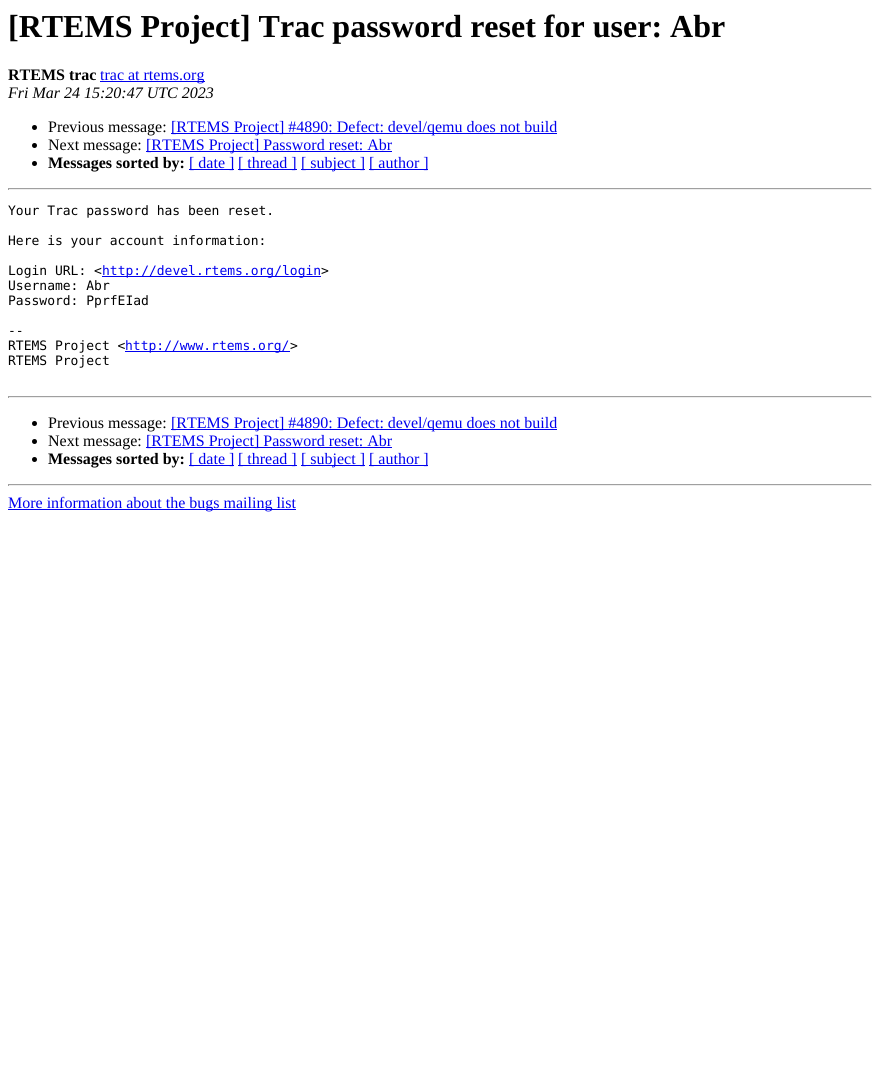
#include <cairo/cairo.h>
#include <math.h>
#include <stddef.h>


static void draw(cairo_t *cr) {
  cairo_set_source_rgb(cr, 1, 1, 1);
  cairo_paint(cr);
  cairo_set_source_rgb(cr, 0, 0, 238 / 255.0);
  cairo_rectangle(cr, 100, 81, 105, 1);
  cairo_fill(cr);
  cairo_set_source_rgb(cr, 0, 0, 0);
  cairo_arc(cr, 34.5, 127.5, 2.5, 0, 2 * M_PI);
  cairo_fill(cr);
  cairo_set_source_rgb(cr, 0, 0, 238 / 255.0);
  cairo_rectangle(cr, 171, 133, 386, 1);
  cairo_fill(cr);
  cairo_set_source_rgb(cr, 0, 0, 0);
  cairo_arc(cr, 34.5, 145.5, 2.5, 0, 2 * M_PI);
  cairo_fill(cr);
  cairo_set_source_rgb(cr, 0, 0, 238 / 255.0);
  cairo_rectangle(cr, 146, 151, 246, 1);
  cairo_fill(cr);
  cairo_set_source_rgb(cr, 0, 0, 0);
  cairo_arc(cr, 34.5, 163.5, 2.5, 0, 2 * M_PI);
  cairo_fill(cr);
  cairo_set_source_rgb(cr, 0, 0, 238 / 255.0);
  cairo_rectangle(cr, 189, 169, 45, 1);
  cairo_fill(cr);
  cairo_rectangle(cr, 238, 169, 59, 1);
  cairo_fill(cr);
  cairo_rectangle(cr, 301, 169, 64, 1);
  cairo_fill(cr);
  cairo_rectangle(cr, 369, 169, 59, 1);
  cairo_fill(cr);
  cairo_set_source_rgb(cr, 159 / 255.0, 159 / 255.0, 159 / 255.0);
  cairo_rectangle(cr, 8, 188, 864, 1);
  cairo_fill(cr);
  cairo_set_source_rgb(cr, 238 / 255.0, 238 / 255.0, 238 / 255.0);
  cairo_rectangle(cr, 871, 188, 1, 2);
  cairo_fill(cr);
  cairo_rectangle(cr, 8, 189, 864, 1);
  cairo_fill(cr);
  cairo_set_source_rgb(cr, 159 / 255.0, 159 / 255.0, 159 / 255.0);
  cairo_rectangle(cr, 8, 188, 1, 2);
  cairo_fill(cr);
  cairo_set_source_rgb(cr, 0, 0, 238 / 255.0);
  cairo_rectangle(cr, 102, 276, 219, 1);
  cairo_fill(cr);
  cairo_rectangle(cr, 125, 351, 165, 1);
  cairo_fill(cr);
  cairo_set_source_rgb(cr, 159 / 255.0, 159 / 255.0, 159 / 255.0);
  cairo_rectangle(cr, 8, 396, 864, 1);
  cairo_fill(cr);
  cairo_set_source_rgb(cr, 238 / 255.0, 238 / 255.0, 238 / 255.0);
  cairo_rectangle(cr, 871, 396, 1, 2);
  cairo_fill(cr);
  cairo_rectangle(cr, 8, 397, 864, 1);
  cairo_fill(cr);
  cairo_set_source_rgb(cr, 159 / 255.0, 159 / 255.0, 159 / 255.0);
  cairo_rectangle(cr, 8, 396, 1, 2);
  cairo_fill(cr);
  cairo_set_source_rgb(cr, 0, 0, 0);
  cairo_arc(cr, 34.5, 423.5, 2.5, 0, 2 * M_PI);
  cairo_fill(cr);
  cairo_set_source_rgb(cr, 0, 0, 238 / 255.0);
  cairo_rectangle(cr, 171, 429, 386, 1);
  cairo_fill(cr);
  cairo_set_source_rgb(cr, 0, 0, 0);
  cairo_arc(cr, 34.5, 441.5, 2.5, 0, 2 * M_PI);
  cairo_fill(cr);
  cairo_set_source_rgb(cr, 0, 0, 238 / 255.0);
  cairo_rectangle(cr, 146, 447, 246, 1);
  cairo_fill(cr);
  cairo_set_source_rgb(cr, 0, 0, 0);
  cairo_arc(cr, 34.5, 459.5, 2.5, 0, 2 * M_PI);
  cairo_fill(cr);
  cairo_set_source_rgb(cr, 0, 0, 238 / 255.0);
  cairo_rectangle(cr, 189, 465, 45, 1);
  cairo_fill(cr);
  cairo_rectangle(cr, 238, 465, 59, 1);
  cairo_fill(cr);
  cairo_rectangle(cr, 301, 465, 64, 1);
  cairo_fill(cr);
  cairo_rectangle(cr, 369, 465, 59, 1);
  cairo_fill(cr);
  cairo_set_source_rgb(cr, 159 / 255.0, 159 / 255.0, 159 / 255.0);
  cairo_rectangle(cr, 8, 484, 864, 1);
  cairo_fill(cr);
  cairo_set_source_rgb(cr, 238 / 255.0, 238 / 255.0, 238 / 255.0);
  cairo_rectangle(cr, 871, 484, 1, 2);
  cairo_fill(cr);
  cairo_rectangle(cr, 8, 485, 864, 1);
  cairo_fill(cr);
  cairo_set_source_rgb(cr, 159 / 255.0, 159 / 255.0, 159 / 255.0);
  cairo_rectangle(cr, 8, 484, 1, 2);
  cairo_fill(cr);
  cairo_set_source_rgb(cr, 0, 0, 238 / 255.0);
  cairo_rectangle(cr, 8, 509, 288, 1);
  cairo_fill(cr);
  cairo_select_font_face(cr, "Liberation Serif", CAIRO_FONT_SLANT_NORMAL, CAIRO_FONT_WEIGHT_BOLD);
  cairo_set_font_size(cr, 32);
  cairo_set_source_rgb(cr, 0, 0, 0);
  cairo_move_to(cr, 8, 37);
  cairo_show_text(cr, "[RTEMS Project] Trac password reset for user: Abr");
  cairo_set_font_size(cr, 16);
  cairo_move_to(cr, 8, 80);
  cairo_show_text(cr, "RTEMS trac");
  cairo_select_font_face(cr, "Liberation Serif", CAIRO_FONT_SLANT_NORMAL, CAIRO_FONT_WEIGHT_NORMAL);
  cairo_set_source_rgb(cr, 0, 0, 238 / 255.0);
  cairo_move_to(cr, 100, 80);
  cairo_show_text(cr, "trac at rtems.org");
  cairo_select_font_face(cr, "Liberation Serif", CAIRO_FONT_SLANT_ITALIC, CAIRO_FONT_WEIGHT_NORMAL);
  cairo_set_source_rgb(cr, 0, 0, 0);
  cairo_move_to(cr, 8, 98);
  cairo_show_text(cr, "Fri Mar 24 15:20:47 UTC 2023");
  cairo_select_font_face(cr, "Liberation Serif", CAIRO_FONT_SLANT_NORMAL, CAIRO_FONT_WEIGHT_NORMAL);
  cairo_move_to(cr, 48, 132);
  cairo_show_text(cr, "Previous message:");
  cairo_set_source_rgb(cr, 0, 0, 238 / 255.0);
  cairo_move_to(cr, 171, 132);
  cairo_show_text(cr, "[RTEMS Project] #4890: Defect: devel/qemu does not build");
  cairo_set_source_rgb(cr, 0, 0, 0);
  cairo_move_to(cr, 48, 150);
  cairo_show_text(cr, "Next message:");
  cairo_set_source_rgb(cr, 0, 0, 238 / 255.0);
  cairo_move_to(cr, 146, 150);
  cairo_show_text(cr, "[RTEMS Project] Password reset: Abr");
  cairo_select_font_face(cr, "Liberation Serif", CAIRO_FONT_SLANT_NORMAL, CAIRO_FONT_WEIGHT_BOLD);
  cairo_set_source_rgb(cr, 0, 0, 0);
  cairo_move_to(cr, 48, 168);
  cairo_show_text(cr, "Messages sorted by:");
  cairo_select_font_face(cr, "Liberation Serif", CAIRO_FONT_SLANT_NORMAL, CAIRO_FONT_WEIGHT_NORMAL);
  cairo_set_source_rgb(cr, 0, 0, 238 / 255.0);
  cairo_move_to(cr, 189, 168);
  cairo_show_text(cr, "[ date ]");
  cairo_move_to(cr, 238, 168);
  cairo_show_text(cr, "[ thread ]");
  cairo_move_to(cr, 301, 168);
  cairo_show_text(cr, "[ subject ]");
  cairo_move_to(cr, 369, 168);
  cairo_show_text(cr, "[ author ]");
  cairo_select_font_face(cr, "DejaVu Sans Mono", CAIRO_FONT_SLANT_NORMAL, CAIRO_FONT_WEIGHT_NORMAL);
  cairo_set_font_size(cr, 13);
  cairo_set_source_rgb(cr, 0, 0, 0);
  cairo_move_to(cr, 8, 215);
  cairo_show_text(cr, "Your Trac password has been reset.");
  cairo_move_to(cr, 8, 245);
  cairo_show_text(cr, "Here is your account information:");
  cairo_move_to(cr, 8, 275);
  cairo_show_text(cr, "Login URL: <");
  cairo_set_source_rgb(cr, 0, 0, 238 / 255.0);
  cairo_move_to(cr, 102, 275);
  cairo_show_text(cr, "http://devel.rtems.org/login");
  cairo_set_source_rgb(cr, 0, 0, 0);
  cairo_move_to(cr, 321, 275);
  cairo_show_text(cr, ">");
  cairo_move_to(cr, 8, 290);
  cairo_show_text(cr, "Username: Abr");
  cairo_move_to(cr, 8, 305);
  cairo_show_text(cr, "Password: PprfEIad");
  cairo_move_to(cr, 8, 335);
  cairo_show_text(cr, "--");
  cairo_move_to(cr, 8, 350);
  cairo_show_text(cr, "RTEMS Project <");
  cairo_set_source_rgb(cr, 0, 0, 238 / 255.0);
  cairo_move_to(cr, 125, 350);
  cairo_show_text(cr, "http://www.rtems.org/");
  cairo_set_source_rgb(cr, 0, 0, 0);
  cairo_move_to(cr, 290, 350);
  cairo_show_text(cr, ">");
  cairo_move_to(cr, 8, 365);
  cairo_show_text(cr, "RTEMS Project");
  cairo_select_font_face(cr, "Liberation Serif", CAIRO_FONT_SLANT_NORMAL, CAIRO_FONT_WEIGHT_NORMAL);
  cairo_set_font_size(cr, 16);
  cairo_move_to(cr, 48, 428);
  cairo_show_text(cr, "Previous message:");
  cairo_set_source_rgb(cr, 0, 0, 238 / 255.0);
  cairo_move_to(cr, 171, 428);
  cairo_show_text(cr, "[RTEMS Project] #4890: Defect: devel/qemu does not build");
  cairo_set_source_rgb(cr, 0, 0, 0);
  cairo_move_to(cr, 48, 446);
  cairo_show_text(cr, "Next message:");
  cairo_set_source_rgb(cr, 0, 0, 238 / 255.0);
  cairo_move_to(cr, 146, 446);
  cairo_show_text(cr, "[RTEMS Project] Password reset: Abr");
  cairo_select_font_face(cr, "Liberation Serif", CAIRO_FONT_SLANT_NORMAL, CAIRO_FONT_WEIGHT_BOLD);
  cairo_set_source_rgb(cr, 0, 0, 0);
  cairo_move_to(cr, 48, 464);
  cairo_show_text(cr, "Messages sorted by:");
  cairo_select_font_face(cr, "Liberation Serif", CAIRO_FONT_SLANT_NORMAL, CAIRO_FONT_WEIGHT_NORMAL);
  cairo_set_source_rgb(cr, 0, 0, 238 / 255.0);
  cairo_move_to(cr, 189, 464);
  cairo_show_text(cr, "[ date ]");
  cairo_move_to(cr, 238, 464);
  cairo_show_text(cr, "[ thread ]");
  cairo_move_to(cr, 301, 464);
  cairo_show_text(cr, "[ subject ]");
  cairo_move_to(cr, 369, 464);
  cairo_show_text(cr, "[ author ]");
  cairo_move_to(cr, 8, 508);
  cairo_show_text(cr, "More information about the bugs mailing list");
}

int main(void) {
  cairo_surface_t *surface = cairo_image_surface_create(CAIRO_FORMAT_RGB24, 880, 1084);
  cairo_t *cr = cairo_create(surface);
  cairo_font_options_t *options = cairo_font_options_create();
  cairo_font_options_set_hint_metrics(options, CAIRO_HINT_METRICS_OFF);
  cairo_font_options_set_hint_style(options, CAIRO_HINT_STYLE_NONE);
  cairo_set_font_options(cr, options);
  cairo_set_miter_limit(cr, 4);
  draw(cr);
  cairo_surface_write_to_png(surface, "out.png");
  cairo_font_options_destroy(options);
  cairo_destroy(cr);
  cairo_surface_destroy(surface);
  return 0;
}
